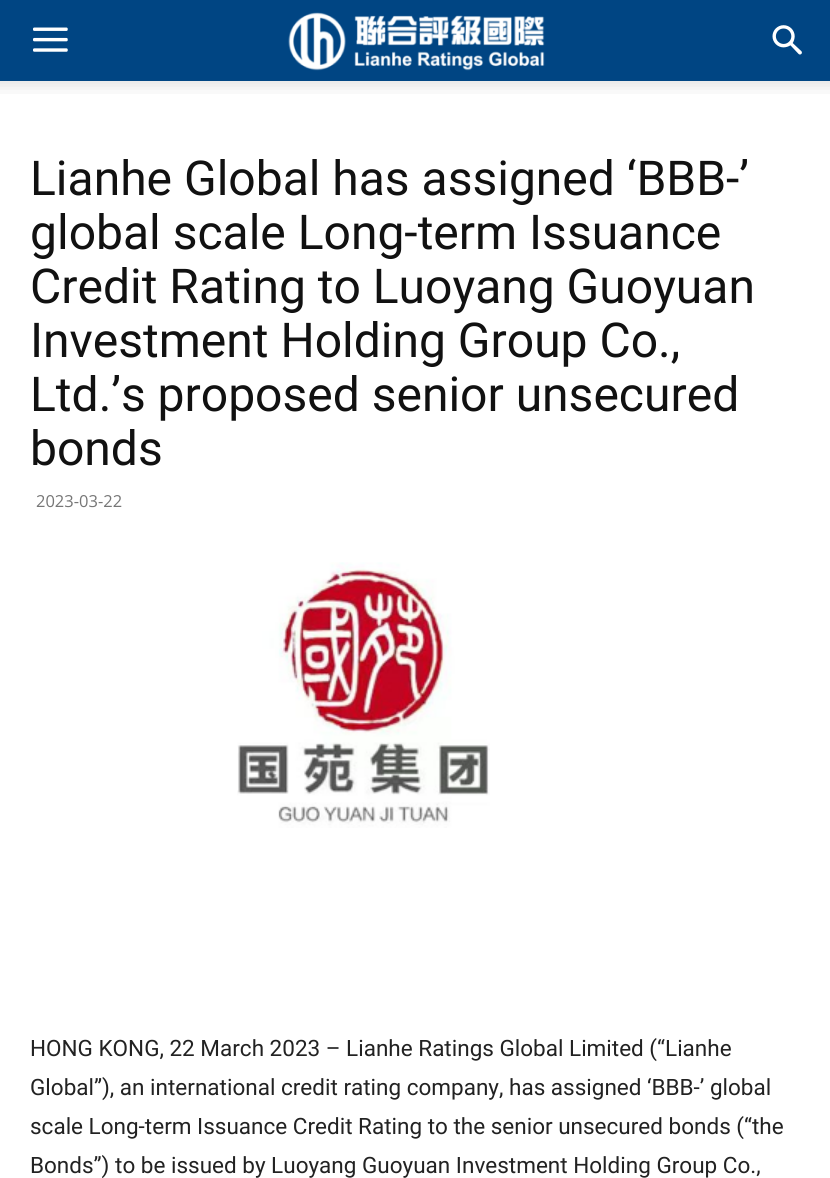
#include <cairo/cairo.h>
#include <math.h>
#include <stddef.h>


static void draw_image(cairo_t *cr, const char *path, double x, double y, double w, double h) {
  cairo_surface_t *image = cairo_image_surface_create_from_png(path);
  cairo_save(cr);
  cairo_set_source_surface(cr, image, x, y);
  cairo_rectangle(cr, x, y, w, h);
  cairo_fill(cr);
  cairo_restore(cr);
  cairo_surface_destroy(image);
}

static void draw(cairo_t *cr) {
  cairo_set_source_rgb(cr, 1, 1, 1);
  cairo_paint(cr);
  cairo_set_source_rgb(cr, 0, 69 / 255.0, 131 / 255.0);
  cairo_rectangle(cr, 0, 0, 830, 81);
  cairo_fill(cr);
  draw_image(cr, "images/1.png", 33, 27, 35, 25);
  draw_image(cr, "images/2.png", 288, 12, 257, 59);
  draw_image(cr, "images/3.png", 772, 25, 30, 30);
  draw_image(cr, "images/4.png", 0, 81, 830, 13);
  draw_image(cr, "images/5.png", 237, 562, 253, 266);
  cairo_select_font_face(cr, "Roboto", CAIRO_FONT_SLANT_NORMAL, CAIRO_FONT_WEIGHT_NORMAL);
  cairo_set_font_size(cr, 48);
  cairo_set_source_rgb(cr, 17 / 255.0, 17 / 255.0, 17 / 255.0);
  cairo_move_to(cr, 30, 195);
  cairo_show_text(cr, "Lianhe Global has assigned ‘BBB-’");
  cairo_move_to(cr, 30, 249);
  cairo_show_text(cr, "global scale Long-term Issuance");
  cairo_move_to(cr, 30, 303);
  cairo_show_text(cr, "Credit Rating to Luoyang Guoyuan");
  cairo_move_to(cr, 30, 357);
  cairo_show_text(cr, "Investment Holding Group Co.,");
  cairo_move_to(cr, 30, 411);
  cairo_show_text(cr, "Ltd.’s proposed senior unsecured");
  cairo_move_to(cr, 30, 465);
  cairo_show_text(cr, "bonds");
  cairo_select_font_face(cr, "Open Sans", CAIRO_FONT_SLANT_NORMAL, CAIRO_FONT_WEIGHT_NORMAL);
  cairo_set_font_size(cr, 16.5);
  cairo_set_source_rgb(cr, 118 / 255.0, 118 / 255.0, 118 / 255.0);
  cairo_move_to(cr, 36, 507);
  cairo_show_text(cr, "2023-03-22");
  cairo_select_font_face(cr, "Roboto", CAIRO_FONT_SLANT_NORMAL, CAIRO_FONT_WEIGHT_NORMAL);
  cairo_set_font_size(cr, 22.5);
  cairo_set_source_rgb(cr, 34 / 255.0, 34 / 255.0, 34 / 255.0);
  cairo_move_to(cr, 30, 1056);
  cairo_show_text(cr, "HONG KONG, 22 March 2023 – Lianhe Ratings Global Limited (“Lianhe");
  cairo_move_to(cr, 30, 1095);
  cairo_show_text(cr, "Global”), an international credit rating company, has assigned ‘BBB-’ global");
  cairo_move_to(cr, 30, 1134);
  cairo_show_text(cr, "scale Long-term Issuance Credit Rating to the senior unsecured bonds (“the");
  cairo_move_to(cr, 30, 1173);
  cairo_show_text(cr, "Bonds”) to be issued by Luoyang Guoyuan Investment Holding Group Co.,");
}

int main(void) {
  cairo_surface_t *surface = cairo_image_surface_create(CAIRO_FORMAT_RGB24, 830, 1178);
  cairo_t *cr = cairo_create(surface);
  cairo_font_options_t *options = cairo_font_options_create();
  cairo_font_options_set_hint_metrics(options, CAIRO_HINT_METRICS_OFF);
  cairo_font_options_set_hint_style(options, CAIRO_HINT_STYLE_NONE);
  cairo_set_font_options(cr, options);
  cairo_set_miter_limit(cr, 4);
  draw(cr);
  cairo_surface_write_to_png(surface, "out.png");
  cairo_font_options_destroy(options);
  cairo_destroy(cr);
  cairo_surface_destroy(surface);
  return 0;
}
